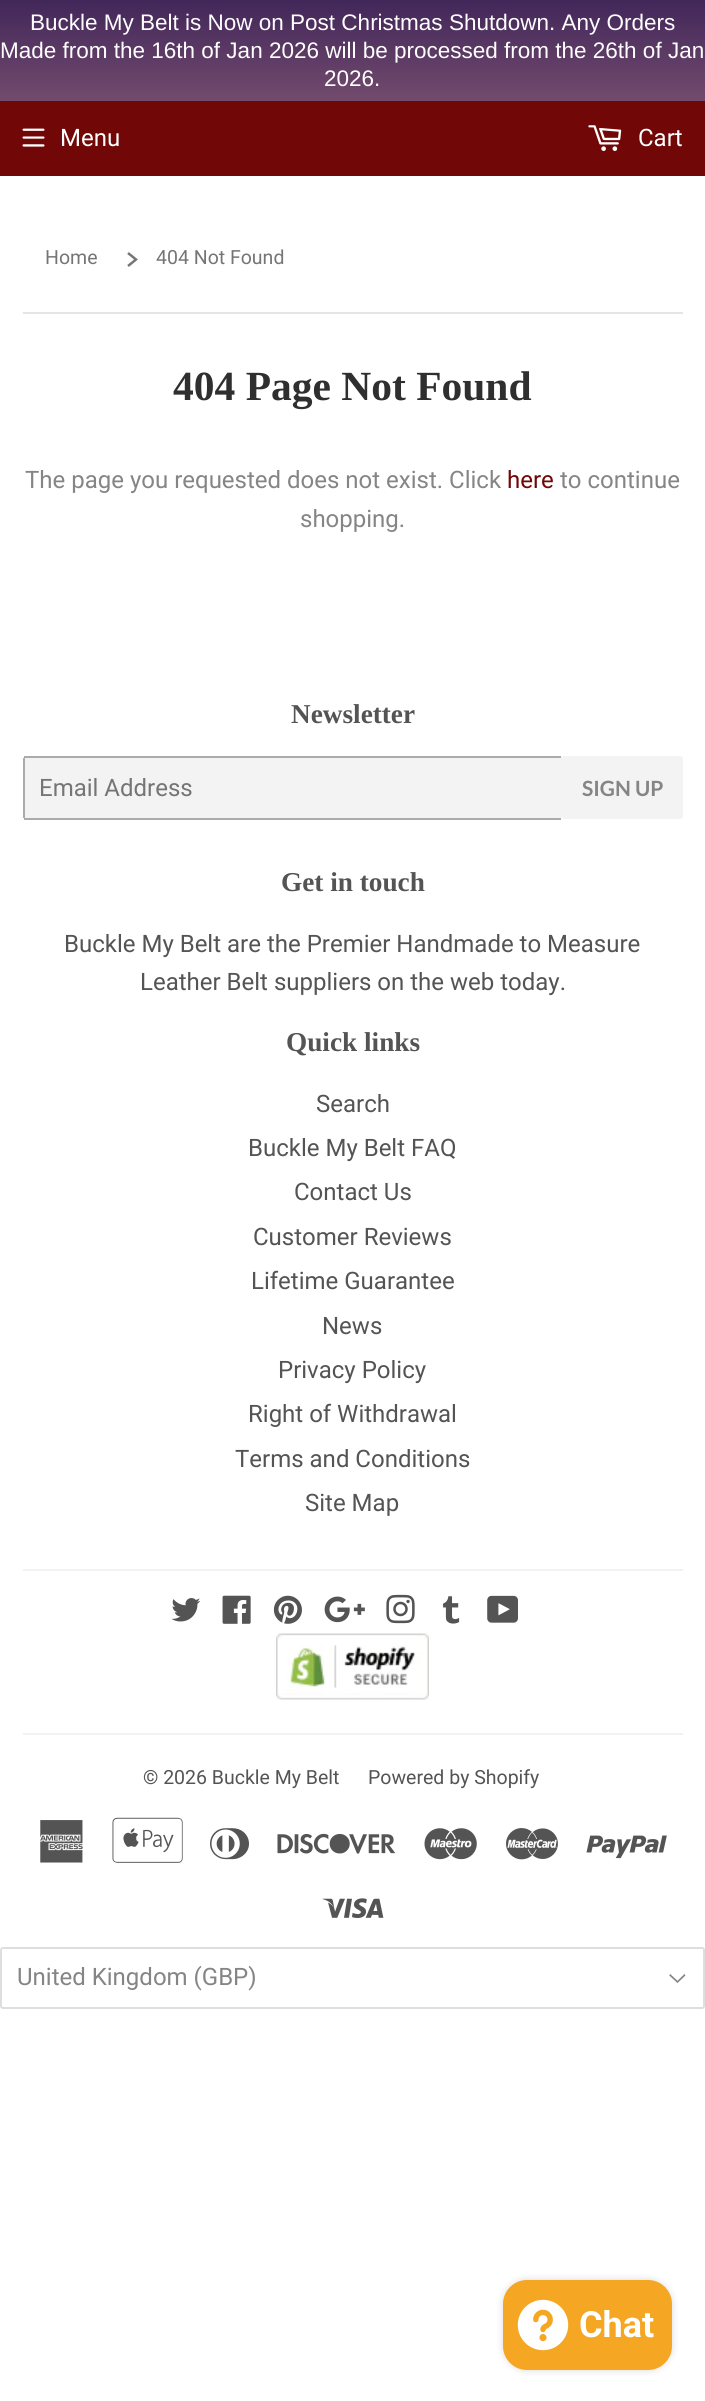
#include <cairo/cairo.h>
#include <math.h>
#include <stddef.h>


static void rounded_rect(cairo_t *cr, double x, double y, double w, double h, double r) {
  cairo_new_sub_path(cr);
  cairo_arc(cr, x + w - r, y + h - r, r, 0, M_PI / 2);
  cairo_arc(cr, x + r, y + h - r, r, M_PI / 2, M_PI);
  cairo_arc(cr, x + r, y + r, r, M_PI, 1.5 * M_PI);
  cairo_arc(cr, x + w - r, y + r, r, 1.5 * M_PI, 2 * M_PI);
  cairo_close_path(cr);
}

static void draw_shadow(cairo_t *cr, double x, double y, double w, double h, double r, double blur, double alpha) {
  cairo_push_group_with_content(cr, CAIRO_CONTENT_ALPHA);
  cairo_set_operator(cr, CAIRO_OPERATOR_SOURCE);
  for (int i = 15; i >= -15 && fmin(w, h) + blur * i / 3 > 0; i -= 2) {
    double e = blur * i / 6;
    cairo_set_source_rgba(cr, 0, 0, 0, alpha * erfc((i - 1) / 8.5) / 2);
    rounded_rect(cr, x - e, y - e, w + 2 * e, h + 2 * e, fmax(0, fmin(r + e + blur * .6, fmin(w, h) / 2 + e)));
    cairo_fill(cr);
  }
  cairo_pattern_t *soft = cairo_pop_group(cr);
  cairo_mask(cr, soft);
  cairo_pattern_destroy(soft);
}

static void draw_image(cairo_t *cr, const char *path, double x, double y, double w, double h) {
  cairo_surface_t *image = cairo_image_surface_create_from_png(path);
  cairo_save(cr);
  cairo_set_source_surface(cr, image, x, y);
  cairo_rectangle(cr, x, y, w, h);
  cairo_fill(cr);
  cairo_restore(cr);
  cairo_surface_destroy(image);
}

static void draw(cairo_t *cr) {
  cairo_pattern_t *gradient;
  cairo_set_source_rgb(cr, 1, 1, 1);
  cairo_paint(cr);
  gradient = cairo_pattern_create_linear(353, 0, 353, 102);
  cairo_pattern_add_color_stop_rgba(gradient, 0, 66 / 255.0, 39 / 255.0, 90 / 255.0, 1);
  cairo_pattern_add_color_stop_rgba(gradient, 1, 115 / 255.0, 75 / 255.0, 109 / 255.0, 1);
  cairo_set_source(cr, gradient);
  cairo_pattern_destroy(gradient);
  cairo_rectangle(cr, 0, 0, 705, 101);
  cairo_fill(cr);
  cairo_set_source_rgb(cr, 114 / 255.0, 7 / 255.0, 7 / 255.0);
  cairo_rectangle(cr, 0, 101, 705, 75);
  cairo_fill(cr);
  draw_image(cr, "images/1.png", 22, 128, 23, 19);
  draw_image(cr, "images/2.png", 588, 125, 34, 26);
  cairo_set_source_rgb(cr, 229 / 255.0, 229 / 255.0, 229 / 255.0);
  cairo_rectangle(cr, 23, 312, 660, 2);
  cairo_fill(cr);
  cairo_new_path(cr);
  cairo_move_to(cr, 128, 253);
  cairo_line_to(cr, 136, 259.5);
  cairo_line_to(cr, 128, 266);
  cairo_set_source_rgb(cr, 118 / 255.0, 118 / 255.0, 118 / 255.0);
  cairo_set_line_width(cr, 2.5);
  cairo_stroke(cr);
  cairo_set_source_rgb(cr, 243 / 255.0, 243 / 255.0, 243 / 255.0);
  rounded_rect(cr, 23, 756, 540, 63, 3);
  cairo_fill(cr);
  cairo_set_source_rgb(cr, 171 / 255.0, 171 / 255.0, 171 / 255.0);
  cairo_rectangle(cr, 24, 756, 537, 2);
  cairo_fill(cr);
  cairo_rectangle(cr, 24, 818, 537, 2);
  cairo_fill(cr);
  cairo_rectangle(cr, 23, 758, 2, 60);
  cairo_fill(cr);
  cairo_set_source_rgb(cr, 243 / 255.0, 243 / 255.0, 243 / 255.0);
  cairo_new_path(cr);
  cairo_move_to(cr, 563, 756);
  cairo_line_to(cr, 680, 756);
  cairo_curve_to(cr, 681.5, 756, 683, 757.5, 683, 759);
  cairo_line_to(cr, 683, 816);
  cairo_curve_to(cr, 683, 817.5, 681.5, 819, 680, 819);
  cairo_line_to(cr, 563, 819);
  cairo_close_path(cr);
  cairo_fill(cr);
  cairo_set_source_rgb(cr, 242 / 255.0, 242 / 255.0, 242 / 255.0);
  cairo_rectangle(cr, 23, 1569, 660, 2);
  cairo_fill(cr);
  draw_image(cr, "images/3.png", 171, 1598, 30, 24);
  draw_image(cr, "images/4.png", 222, 1595, 29, 29);
  draw_image(cr, "images/5.png", 273, 1595, 29, 29);
  draw_image(cr, "images/6.png", 324, 1596, 41, 27);
  draw_image(cr, "images/7.png", 386, 1594, 29, 30);
  draw_image(cr, "images/8.png", 443, 1596, 17, 28);
  draw_image(cr, "images/9.png", 487, 1595, 31, 28);
  draw_image(cr, "images/10.png", 276, 1633, 153, 67);
  cairo_rectangle(cr, 23, 1733, 660, 2);
  cairo_fill(cr);
  draw_image(cr, "images/11.png", 40, 1820, 43, 43);
  draw_image(cr, "images/12.png", 112, 1817, 71, 46);
  draw_image(cr, "images/13.png", 210, 1828, 39, 32);
  draw_image(cr, "images/14.png", 277, 1833, 119, 21);
  draw_image(cr, "images/15.png", 424, 1828, 53, 32);
  draw_image(cr, "images/16.png", 506, 1828, 52, 32);
  draw_image(cr, "images/17.png", 586, 1835, 81, 24);
  draw_image(cr, "images/18.png", 322, 1898, 62, 20);
  draw_image(cr, "images/19.png", 669, 1974, 17, 9);
  rounded_rect(cr, 1, 1948, 703, 60, 2);
  cairo_set_source_rgb(cr, 222 / 255.0, 222 / 255.0, 222 / 255.0);
  cairo_set_line_width(cr, 2);
  cairo_stroke(cr);
  cairo_set_source_rgb(cr, 0, 0, 0);
  draw_shadow(cr, 503, 2280, 169, 90, 24, 4, 0.15);
  cairo_set_source_rgb(cr, 245 / 255.0, 166 / 255.0, 35 / 255.0);
  rounded_rect(cr, 503, 2280, 169, 90, 24);
  cairo_fill(cr);
  draw_image(cr, "images/20.png", 517, 2299, 52, 52);
  cairo_select_font_face(cr, "Liberation Sans", CAIRO_FONT_SLANT_NORMAL, CAIRO_FONT_WEIGHT_NORMAL);
  cairo_set_font_size(cr, 22.5);
  cairo_set_source_rgb(cr, 1, 1, 1);
  cairo_move_to(cr, 30, 30);
  cairo_show_text(cr, "Buckle My Belt is Now on Post Christmas Shutdown. Any Orders");
  cairo_move_to(cr, 0, 58);
  cairo_show_text(cr, "Made from the 16th of Jan 2026 will be processed from the 26th of Jan");
  cairo_move_to(cr, 324, 86);
  cairo_show_text(cr, "2026.");
  cairo_select_font_face(cr, "Roboto", CAIRO_FONT_SLANT_NORMAL, CAIRO_FONT_WEIGHT_NORMAL);
  cairo_set_font_size(cr, 24);
  cairo_move_to(cr, 60, 146);
  cairo_show_text(cr, "Menu");
  cairo_move_to(cr, 638, 146);
  cairo_show_text(cr, "Cart");
  cairo_set_font_size(cr, 19.5);
  cairo_set_source_rgb(cr, 117 / 255.0, 117 / 255.0, 117 / 255.0);
  cairo_move_to(cr, 45, 264);
  cairo_show_text(cr, "Home");
  cairo_move_to(cr, 156, 264);
  cairo_show_text(cr, "404 Not Found");
  cairo_select_font_face(cr, "Liberation Serif", CAIRO_FONT_SLANT_NORMAL, CAIRO_FONT_WEIGHT_BOLD);
  cairo_set_font_size(cr, 41.5);
  cairo_set_source_rgb(cr, 47 / 255.0, 47 / 255.0, 47 / 255.0);
  cairo_move_to(cr, 173, 400);
  cairo_show_text(cr, "404 Page Not Found");
  cairo_select_font_face(cr, "Roboto", CAIRO_FONT_SLANT_NORMAL, CAIRO_FONT_WEIGHT_NORMAL);
  cairo_set_font_size(cr, 24);
  cairo_set_source_rgb(cr, 133 / 255.0, 133 / 255.0, 133 / 255.0);
  cairo_move_to(cr, 25, 488);
  cairo_show_text(cr, "The page you requested does not exist. Click");
  cairo_set_source_rgb(cr, 114 / 255.0, 7 / 255.0, 7 / 255.0);
  cairo_move_to(cr, 507, 488);
  cairo_show_text(cr, "here");
  cairo_set_source_rgb(cr, 133 / 255.0, 133 / 255.0, 133 / 255.0);
  cairo_move_to(cr, 560, 488);
  cairo_show_text(cr, "to continue");
  cairo_move_to(cr, 300, 527);
  cairo_show_text(cr, "shopping.");
  cairo_select_font_face(cr, "Liberation Serif", CAIRO_FONT_SLANT_NORMAL, CAIRO_FONT_WEIGHT_BOLD);
  cairo_set_font_size(cr, 27.25);
  cairo_set_source_rgb(cr, 84 / 255.0, 84 / 255.0, 84 / 255.0);
  cairo_move_to(cr, 291, 723);
  cairo_show_text(cr, "Newsletter");
  cairo_select_font_face(cr, "Roboto", CAIRO_FONT_SLANT_NORMAL, CAIRO_FONT_WEIGHT_NORMAL);
  cairo_set_font_size(cr, 24);
  cairo_set_source_rgb(cr, 117 / 255.0, 117 / 255.0, 117 / 255.0);
  cairo_move_to(cr, 39, 796);
  cairo_show_text(cr, "Email Address");
  cairo_select_font_face(cr, "Lato", CAIRO_FONT_SLANT_NORMAL, CAIRO_FONT_WEIGHT_BOLD);
  cairo_set_font_size(cr, 21);
  cairo_set_source_rgb(cr, 133 / 255.0, 133 / 255.0, 133 / 255.0);
  cairo_move_to(cr, 582, 796);
  cairo_show_text(cr, "SIGN UP");
  cairo_select_font_face(cr, "Liberation Serif", CAIRO_FONT_SLANT_NORMAL, CAIRO_FONT_WEIGHT_BOLD);
  cairo_set_font_size(cr, 27.25);
  cairo_set_source_rgb(cr, 84 / 255.0, 84 / 255.0, 84 / 255.0);
  cairo_move_to(cr, 281, 891);
  cairo_show_text(cr, "Get in touch");
  cairo_select_font_face(cr, "Roboto", CAIRO_FONT_SLANT_NORMAL, CAIRO_FONT_WEIGHT_NORMAL);
  cairo_set_font_size(cr, 24);
  cairo_move_to(cr, 64, 952);
  cairo_show_text(cr, "Buckle My Belt are the Premier Handmade to Measure");
  cairo_move_to(cr, 140, 990);
  cairo_show_text(cr, "Leather Belt suppliers on the web today.");
  cairo_select_font_face(cr, "Liberation Serif", CAIRO_FONT_SLANT_NORMAL, CAIRO_FONT_WEIGHT_BOLD);
  cairo_set_font_size(cr, 27.25);
  cairo_move_to(cr, 286, 1051);
  cairo_show_text(cr, "Quick links");
  cairo_select_font_face(cr, "Roboto", CAIRO_FONT_SLANT_NORMAL, CAIRO_FONT_WEIGHT_NORMAL);
  cairo_set_font_size(cr, 24);
  cairo_move_to(cr, 316, 1112);
  cairo_show_text(cr, "Search");
  cairo_move_to(cr, 248, 1156);
  cairo_show_text(cr, "Buckle My Belt FAQ");
  cairo_move_to(cr, 294, 1200);
  cairo_show_text(cr, "Contact Us");
  cairo_move_to(cr, 253, 1245);
  cairo_show_text(cr, "Customer Reviews");
  cairo_move_to(cr, 251, 1289);
  cairo_show_text(cr, "Lifetime Guarantee");
  cairo_move_to(cr, 322, 1334);
  cairo_show_text(cr, "News");
  cairo_move_to(cr, 278, 1378);
  cairo_show_text(cr, "Privacy Policy");
  cairo_move_to(cr, 248, 1422);
  cairo_show_text(cr, "Right of Withdrawal");
  cairo_move_to(cr, 235, 1467);
  cairo_show_text(cr, "Terms and Conditions");
  cairo_move_to(cr, 305, 1511);
  cairo_show_text(cr, "Site Map");
  cairo_set_font_size(cr, 19.5);
  cairo_move_to(cr, 143, 1784);
  cairo_show_text(cr, "© 2026 Buckle My Belt");
  cairo_move_to(cr, 368, 1784);
  cairo_show_text(cr, "Powered by Shopify");
  cairo_set_font_size(cr, 24);
  cairo_set_source_rgb(cr, 133 / 255.0, 133 / 255.0, 133 / 255.0);
  cairo_move_to(cr, 17, 1985);
  cairo_show_text(cr, "United Kingdom (GBP)");
  cairo_select_font_face(cr, "Roboto", CAIRO_FONT_SLANT_NORMAL, CAIRO_FONT_WEIGHT_BOLD);
  cairo_set_font_size(cr, 36);
  cairo_set_source_rgb(cr, 1, 1, 1);
  cairo_move_to(cr, 579, 2337);
  cairo_show_text(cr, "Chat");
}

int main(void) {
  cairo_surface_t *surface = cairo_image_surface_create(CAIRO_FORMAT_RGB24, 705, 2401);
  cairo_t *cr = cairo_create(surface);
  cairo_font_options_t *options = cairo_font_options_create();
  cairo_font_options_set_hint_metrics(options, CAIRO_HINT_METRICS_OFF);
  cairo_font_options_set_hint_style(options, CAIRO_HINT_STYLE_NONE);
  cairo_set_font_options(cr, options);
  cairo_set_miter_limit(cr, 4);
  draw(cr);
  cairo_surface_write_to_png(surface, "out.png");
  cairo_font_options_destroy(options);
  cairo_destroy(cr);
  cairo_surface_destroy(surface);
  return 0;
}
